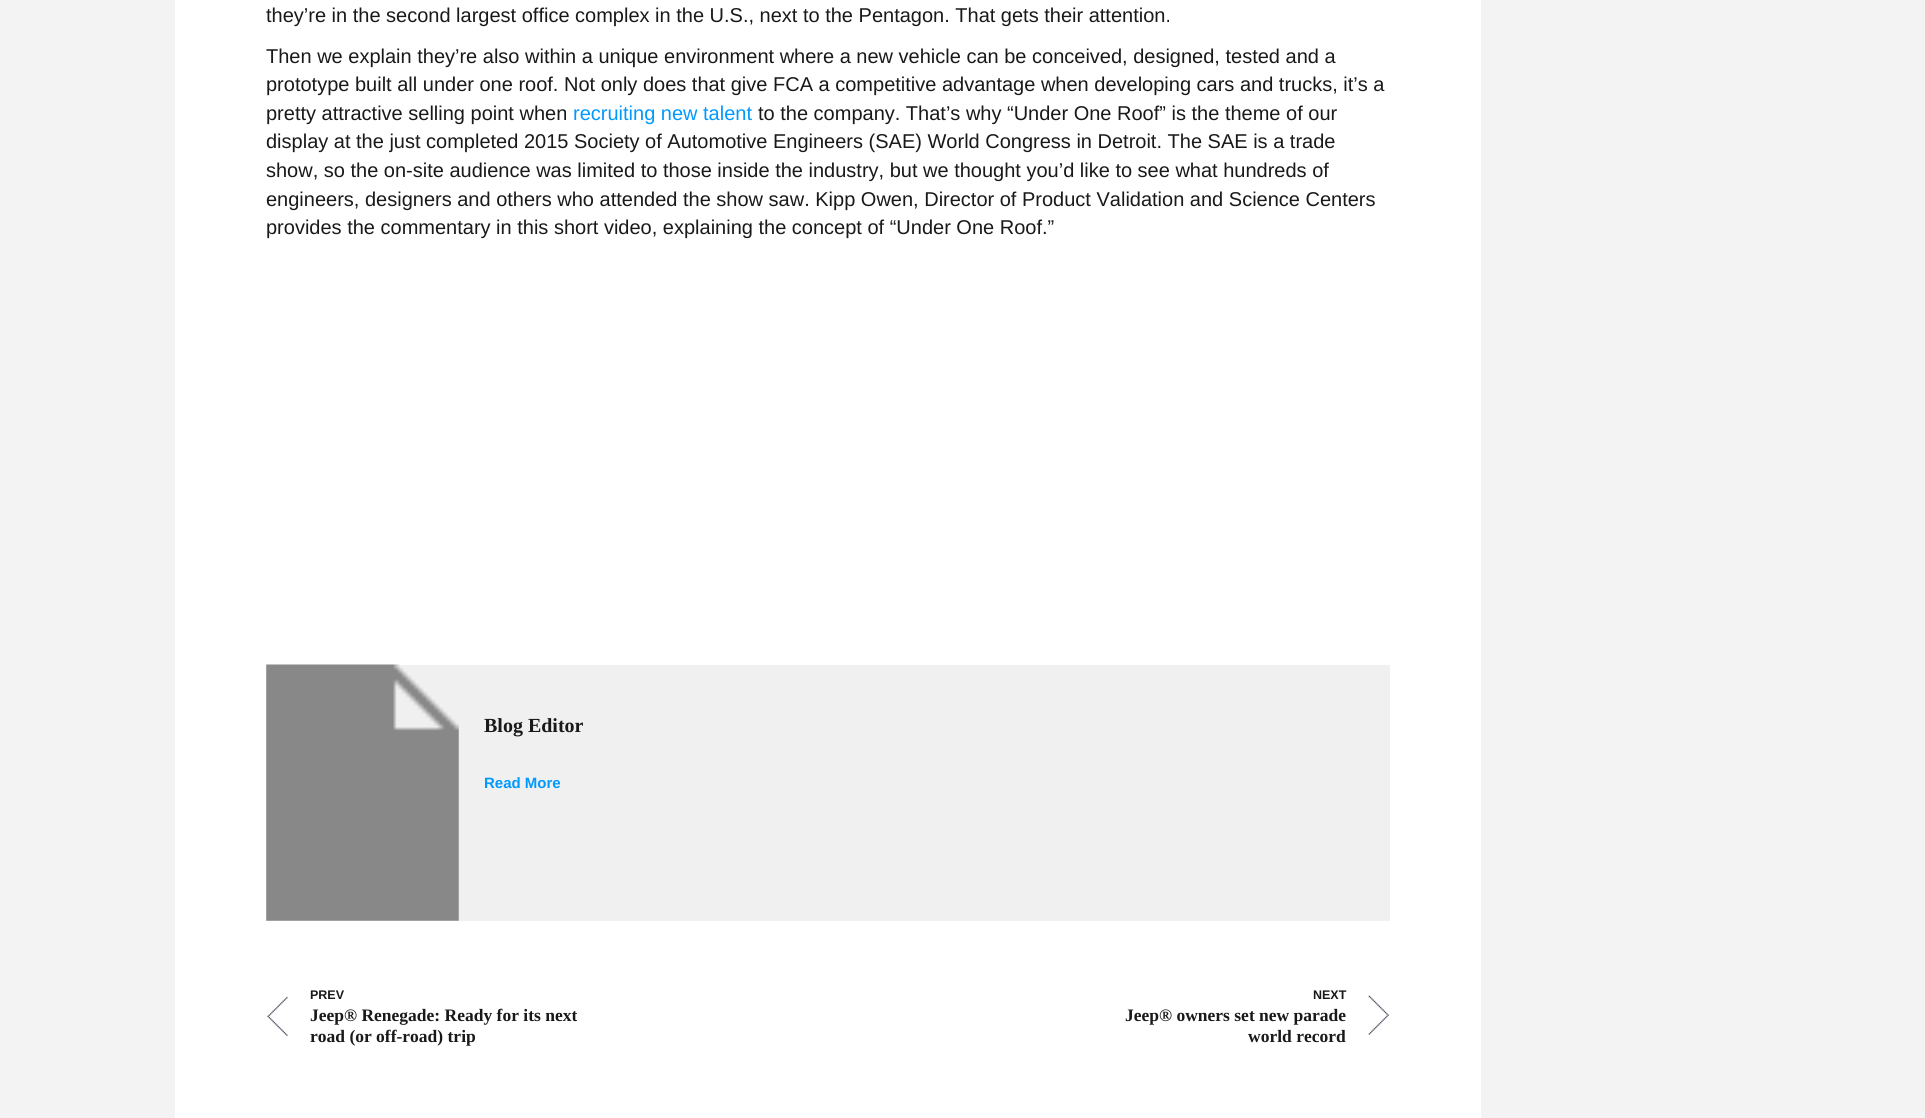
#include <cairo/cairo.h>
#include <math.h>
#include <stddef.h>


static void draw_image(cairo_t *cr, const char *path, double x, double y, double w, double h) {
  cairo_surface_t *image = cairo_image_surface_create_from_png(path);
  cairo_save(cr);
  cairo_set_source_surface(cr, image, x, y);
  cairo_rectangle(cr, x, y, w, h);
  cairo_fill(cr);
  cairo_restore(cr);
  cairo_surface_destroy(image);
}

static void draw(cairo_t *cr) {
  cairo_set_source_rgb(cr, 243 / 255.0, 243 / 255.0, 243 / 255.0);
  cairo_paint(cr);
  cairo_set_source_rgb(cr, 1, 1, 1);
  cairo_rectangle(cr, 175, 0, 1306, 1118);
  cairo_fill(cr);
  cairo_set_source_rgb(cr, 240 / 255.0, 240 / 255.0, 240 / 255.0);
  cairo_rectangle(cr, 266, 665, 1124, 256);
  cairo_fill(cr);
  draw_image(cr, "images/1.png", 266, 664, 193, 257);
  draw_image(cr, "images/2.png", 267, 996, 21, 40);
  draw_image(cr, "images/3.png", 1368, 995, 21, 40);
  cairo_select_font_face(cr, "Liberation Sans", CAIRO_FONT_SLANT_NORMAL, CAIRO_FONT_WEIGHT_NORMAL);
  cairo_set_font_size(cr, 20);
  cairo_set_source_rgb(cr, 25 / 255.0, 25 / 255.0, 25 / 255.0);
  cairo_move_to(cr, 266, 22);
  cairo_show_text(cr, "they’re in the second largest office complex in the U.S., next to the Pentagon. That gets their attention.");
  cairo_move_to(cr, 266, 63);
  cairo_show_text(cr, "Then we explain they’re also within a unique environment where a new vehicle can be conceived, designed, tested and a");
  cairo_move_to(cr, 266, 91);
  cairo_show_text(cr, "prototype built all under one roof. Not only does that give FCA a competitive advantage when developing cars and trucks, it’s a");
  cairo_move_to(cr, 266, 120);
  cairo_show_text(cr, "pretty attractive selling point when");
  cairo_set_source_rgb(cr, 0, 153 / 255.0, 1);
  cairo_move_to(cr, 573, 120);
  cairo_show_text(cr, "recruiting new talent");
  cairo_set_source_rgb(cr, 25 / 255.0, 25 / 255.0, 25 / 255.0);
  cairo_move_to(cr, 758, 120);
  cairo_show_text(cr, "to the company. That’s why “Under One Roof” is the theme of our");
  cairo_move_to(cr, 266, 148);
  cairo_show_text(cr, "display at the just completed 2015 Society of Automotive Engineers (SAE) World Congress in Detroit. The SAE is a trade");
  cairo_move_to(cr, 266, 177);
  cairo_show_text(cr, "show, so the on-site audience was limited to those inside the industry, but we thought you’d like to see what hundreds of");
  cairo_move_to(cr, 266, 206);
  cairo_show_text(cr, "engineers, designers and others who attended the show saw. Kipp Owen, Director of Product Validation and Science Centers");
  cairo_move_to(cr, 266, 234);
  cairo_show_text(cr, "provides the commentary in this short video, explaining the concept of “Under One Roof.”");
  cairo_select_font_face(cr, "Liberation Serif", CAIRO_FONT_SLANT_NORMAL, CAIRO_FONT_WEIGHT_BOLD);
  cairo_move_to(cr, 484, 732);
  cairo_show_text(cr, "Blog Editor");
  cairo_select_font_face(cr, "Liberation Sans", CAIRO_FONT_SLANT_NORMAL, CAIRO_FONT_WEIGHT_BOLD);
  cairo_set_font_size(cr, 15);
  cairo_set_source_rgb(cr, 0, 153 / 255.0, 1);
  cairo_move_to(cr, 484, 788);
  cairo_show_text(cr, "Read More");
  cairo_set_font_size(cr, 12.5);
  cairo_set_source_rgb(cr, 25 / 255.0, 25 / 255.0, 25 / 255.0);
  cairo_move_to(cr, 310, 999);
  cairo_show_text(cr, "PREV");
  cairo_select_font_face(cr, "Liberation Serif", CAIRO_FONT_SLANT_NORMAL, CAIRO_FONT_WEIGHT_BOLD);
  cairo_set_font_size(cr, 17.5);
  cairo_move_to(cr, 310, 1021);
  cairo_show_text(cr, "Jeep® Renegade: Ready for its next");
  cairo_move_to(cr, 310, 1042);
  cairo_show_text(cr, "road (or off-road) trip");
  cairo_select_font_face(cr, "Liberation Sans", CAIRO_FONT_SLANT_NORMAL, CAIRO_FONT_WEIGHT_BOLD);
  cairo_set_font_size(cr, 12.5);
  cairo_move_to(cr, 1313, 999);
  cairo_show_text(cr, "NEXT");
  cairo_select_font_face(cr, "Liberation Serif", CAIRO_FONT_SLANT_NORMAL, CAIRO_FONT_WEIGHT_BOLD);
  cairo_set_font_size(cr, 17.5);
  cairo_move_to(cr, 1125, 1021);
  cairo_show_text(cr, "Jeep® owners set new parade");
  cairo_move_to(cr, 1248, 1042);
  cairo_show_text(cr, "world record");
}

int main(void) {
  cairo_surface_t *surface = cairo_image_surface_create(CAIRO_FORMAT_RGB24, 1925, 1118);
  cairo_t *cr = cairo_create(surface);
  cairo_font_options_t *options = cairo_font_options_create();
  cairo_font_options_set_hint_metrics(options, CAIRO_HINT_METRICS_OFF);
  cairo_font_options_set_hint_style(options, CAIRO_HINT_STYLE_NONE);
  cairo_set_font_options(cr, options);
  cairo_set_miter_limit(cr, 4);
  draw(cr);
  cairo_surface_write_to_png(surface, "out.png");
  cairo_font_options_destroy(options);
  cairo_destroy(cr);
  cairo_surface_destroy(surface);
  return 0;
}
